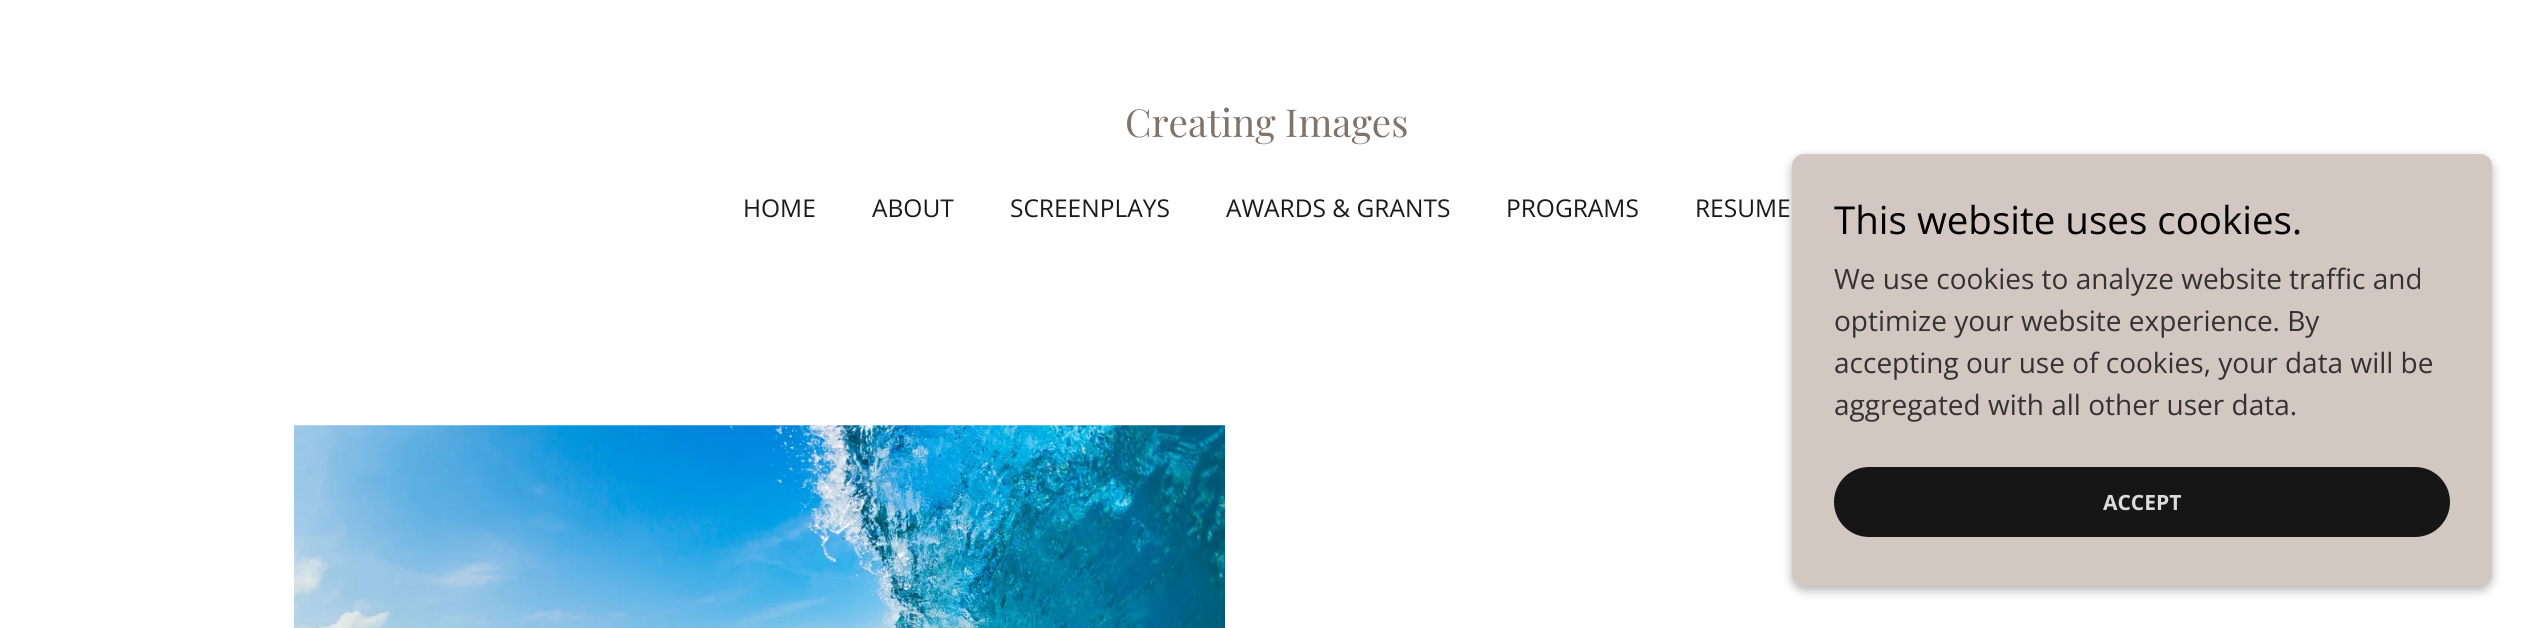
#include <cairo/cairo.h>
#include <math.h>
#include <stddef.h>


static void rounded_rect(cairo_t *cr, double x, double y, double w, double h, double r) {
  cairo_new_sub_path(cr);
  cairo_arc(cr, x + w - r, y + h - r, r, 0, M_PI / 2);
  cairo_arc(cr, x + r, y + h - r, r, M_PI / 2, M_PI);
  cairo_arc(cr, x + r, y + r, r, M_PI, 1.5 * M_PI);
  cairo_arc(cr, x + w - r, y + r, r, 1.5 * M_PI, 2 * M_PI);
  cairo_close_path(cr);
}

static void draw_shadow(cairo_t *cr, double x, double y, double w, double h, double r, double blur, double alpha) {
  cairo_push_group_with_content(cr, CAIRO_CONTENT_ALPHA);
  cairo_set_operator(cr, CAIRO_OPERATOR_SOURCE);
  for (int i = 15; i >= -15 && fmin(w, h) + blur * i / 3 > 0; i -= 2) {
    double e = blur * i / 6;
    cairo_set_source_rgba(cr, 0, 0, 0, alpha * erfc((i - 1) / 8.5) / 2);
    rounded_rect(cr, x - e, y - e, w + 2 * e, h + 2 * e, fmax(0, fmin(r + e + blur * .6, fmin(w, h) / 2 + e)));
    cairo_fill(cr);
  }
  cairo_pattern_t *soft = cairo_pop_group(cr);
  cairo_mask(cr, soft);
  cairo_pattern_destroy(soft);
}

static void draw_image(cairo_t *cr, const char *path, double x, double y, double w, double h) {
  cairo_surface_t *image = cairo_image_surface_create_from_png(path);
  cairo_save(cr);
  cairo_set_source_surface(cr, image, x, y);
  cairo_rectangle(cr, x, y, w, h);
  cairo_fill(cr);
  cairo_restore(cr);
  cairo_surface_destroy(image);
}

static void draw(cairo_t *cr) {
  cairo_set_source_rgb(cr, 1, 1, 1);
  cairo_paint(cr);
  draw_image(cr, "images/1.png", 294, 425, 931, 203);
  cairo_set_source_rgb(cr, 0, 0, 0);
  draw_shadow(cr, 1792, 158, 700, 432, 12, 5, 0.3);
  cairo_set_source_rgb(cr, 211 / 255.0, 200 / 255.0, 193 / 255.0);
  rounded_rect(cr, 1792, 154, 700, 432, 12);
  cairo_fill(cr);
  cairo_set_source_rgb(cr, 22 / 255.0, 22 / 255.0, 22 / 255.0);
  rounded_rect(cr, 1834, 467, 616, 70, 35);
  cairo_fill(cr);
  cairo_select_font_face(cr, "Playfair Display", CAIRO_FONT_SLANT_NORMAL, CAIRO_FONT_WEIGHT_NORMAL);
  cairo_set_font_size(cr, 38.5);
  cairo_set_source_rgb(cr, 127 / 255.0, 116 / 255.0, 108 / 255.0);
  cairo_move_to(cr, 1125, 137);
  cairo_show_text(cr, "Creating Images");
  cairo_select_font_face(cr, "Open Sans", CAIRO_FONT_SLANT_NORMAL, CAIRO_FONT_WEIGHT_NORMAL);
  cairo_set_font_size(cr, 24.5);
  cairo_set_source_rgb(cr, 27 / 255.0, 27 / 255.0, 27 / 255.0);
  cairo_move_to(cr, 743, 217);
  cairo_show_text(cr, "HOME");
  cairo_move_to(cr, 872, 217);
  cairo_show_text(cr, "ABOUT");
  cairo_move_to(cr, 1010, 217);
  cairo_show_text(cr, "SCREENPLAYS");
  cairo_move_to(cr, 1226, 217);
  cairo_show_text(cr, "AWARDS & GRANTS");
  cairo_move_to(cr, 1506, 217);
  cairo_show_text(cr, "PROGRAMS");
  cairo_move_to(cr, 1695, 217);
  cairo_show_text(cr, "RESUME");
  cairo_set_font_size(cr, 38.5);
  cairo_set_source_rgb(cr, 0, 0, 0);
  cairo_move_to(cr, 1834, 234);
  cairo_show_text(cr, "This website uses cookies.");
  cairo_set_font_size(cr, 28);
  cairo_set_source_rgb(cr, 52 / 255.0, 51 / 255.0, 50 / 255.0);
  cairo_move_to(cr, 1834, 289);
  cairo_show_text(cr, "We use cookies to analyze website traffic and");
  cairo_move_to(cr, 1834, 331);
  cairo_show_text(cr, "optimize your website experience. By");
  cairo_move_to(cr, 1834, 373);
  cairo_show_text(cr, "accepting our use of cookies, your data will be");
  cairo_move_to(cr, 1834, 415);
  cairo_show_text(cr, "aggregated with all other user data.");
  cairo_select_font_face(cr, "Open Sans", CAIRO_FONT_SLANT_NORMAL, CAIRO_FONT_WEIGHT_BOLD);
  cairo_set_font_size(cr, 21);
  cairo_set_source_rgb(cr, 219 / 255.0, 219 / 255.0, 219 / 255.0);
  cairo_move_to(cr, 2103, 510);
  cairo_show_text(cr, "ACCEPT");
}

int main(void) {
  cairo_surface_t *surface = cairo_image_surface_create(CAIRO_FORMAT_RGB24, 2533, 628);
  cairo_t *cr = cairo_create(surface);
  cairo_font_options_t *options = cairo_font_options_create();
  cairo_font_options_set_hint_metrics(options, CAIRO_HINT_METRICS_OFF);
  cairo_font_options_set_hint_style(options, CAIRO_HINT_STYLE_NONE);
  cairo_set_font_options(cr, options);
  cairo_set_miter_limit(cr, 4);
  draw(cr);
  cairo_surface_write_to_png(surface, "out.png");
  cairo_font_options_destroy(options);
  cairo_destroy(cr);
  cairo_surface_destroy(surface);
  return 0;
}
